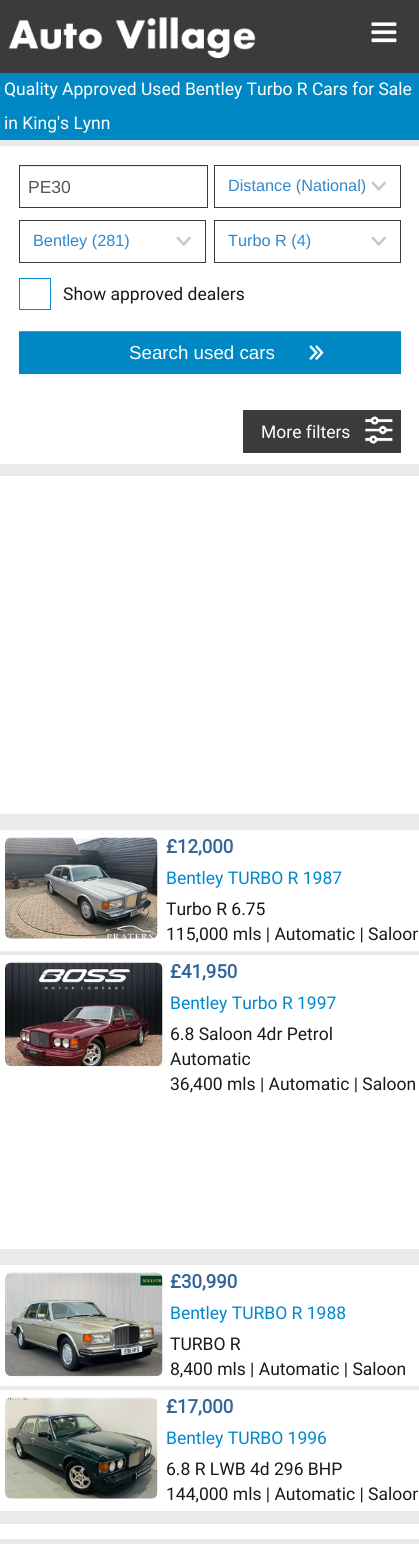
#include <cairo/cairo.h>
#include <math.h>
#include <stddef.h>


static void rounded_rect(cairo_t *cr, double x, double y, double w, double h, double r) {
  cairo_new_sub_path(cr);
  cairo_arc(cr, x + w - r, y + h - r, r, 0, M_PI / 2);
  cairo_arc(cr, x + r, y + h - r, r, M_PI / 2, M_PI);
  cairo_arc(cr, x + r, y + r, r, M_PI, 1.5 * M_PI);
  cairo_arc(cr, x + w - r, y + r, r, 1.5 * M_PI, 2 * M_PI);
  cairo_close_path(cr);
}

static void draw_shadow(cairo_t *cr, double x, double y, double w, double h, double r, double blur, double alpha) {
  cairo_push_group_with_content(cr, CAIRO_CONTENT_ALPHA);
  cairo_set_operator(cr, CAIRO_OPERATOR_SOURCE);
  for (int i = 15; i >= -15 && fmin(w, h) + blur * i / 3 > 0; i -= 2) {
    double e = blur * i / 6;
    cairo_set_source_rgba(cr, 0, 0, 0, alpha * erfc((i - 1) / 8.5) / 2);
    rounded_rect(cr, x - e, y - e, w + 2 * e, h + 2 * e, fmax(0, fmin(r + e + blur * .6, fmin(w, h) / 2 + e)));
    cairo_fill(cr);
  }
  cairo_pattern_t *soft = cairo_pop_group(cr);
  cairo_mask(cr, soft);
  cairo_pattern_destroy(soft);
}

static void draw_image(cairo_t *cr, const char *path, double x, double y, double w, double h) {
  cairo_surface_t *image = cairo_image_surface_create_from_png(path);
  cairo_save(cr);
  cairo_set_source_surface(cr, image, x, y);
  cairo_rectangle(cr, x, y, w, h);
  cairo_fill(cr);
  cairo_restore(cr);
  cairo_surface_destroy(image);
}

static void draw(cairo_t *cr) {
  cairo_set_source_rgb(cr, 234 / 255.0, 234 / 255.0, 234 / 255.0);
  cairo_paint(cr);
  cairo_set_source_rgb(cr, 59 / 255.0, 59 / 255.0, 59 / 255.0);
  cairo_rectangle(cr, 0, 0, 419, 73);
  cairo_fill(cr);
  draw_image(cr, "images/1.png", 8, 17, 248, 42);
  draw_image(cr, "images/2.png", 371, 22, 26, 21);
  cairo_set_source_rgb(cr, 0, 136 / 255.0, 196 / 255.0);
  cairo_rectangle(cr, 0, 73, 419, 67);
  cairo_fill(cr);
  cairo_set_source_rgb(cr, 1, 1, 1);
  cairo_rectangle(cr, 0, 146, 419, 318);
  cairo_fill(cr);
  cairo_set_source_rgb(cr, 236 / 255.0, 236 / 255.0, 236 / 255.0);
  cairo_rectangle(cr, 20, 166, 186, 1);
  cairo_fill(cr);
  cairo_rectangle(cr, 19.5, 165.5, 188, 42);
  cairo_set_source_rgb(cr, 59 / 255.0, 59 / 255.0, 59 / 255.0);
  cairo_set_line_width(cr, 1);
  cairo_stroke(cr);
  draw_image(cr, "images/3.png", 371, 181, 16, 10);
  cairo_rectangle(cr, 214.5, 165.5, 186, 42);
  cairo_stroke(cr);
  draw_image(cr, "images/4.png", 176, 236, 16, 10);
  cairo_rectangle(cr, 19.5, 220.5, 186, 42);
  cairo_stroke(cr);
  draw_image(cr, "images/3.png", 371, 236, 16, 10);
  cairo_rectangle(cr, 214.5, 220.5, 186, 42);
  cairo_stroke(cr);
  cairo_rectangle(cr, 19.5, 278.5, 31, 31);
  cairo_set_source_rgb(cr, 0, 136 / 255.0, 196 / 255.0);
  cairo_stroke(cr);
  cairo_set_source_rgb(cr, 0, 0, 0);
  draw_shadow(cr, 19, 333, 382, 42, 0, 1, 0.05);
  cairo_set_source_rgb(cr, 0, 136 / 255.0, 196 / 255.0);
  cairo_rectangle(cr, 19, 332, 382, 42);
  cairo_fill(cr);
  draw_image(cr, "images/5.png", 309, 345, 15, 15);
  cairo_set_source_rgb(cr, 51 / 255.0, 160 / 255.0, 208 / 255.0);
  cairo_rectangle(cr, 19, 331, 382, 1);
  cairo_fill(cr);
  cairo_set_source_rgb(cr, 59 / 255.0, 59 / 255.0, 59 / 255.0);
  cairo_rectangle(cr, 243, 410, 158, 43);
  cairo_fill(cr);
  draw_image(cr, "images/6.png", 365, 416, 28, 28);
  cairo_set_source_rgb(cr, 1, 1, 1);
  cairo_rectangle(cr, 0, 476, 419, 338);
  cairo_fill(cr);
  cairo_set_source_rgb(cr, 238 / 255.0, 238 / 255.0, 238 / 255.0);
  cairo_rectangle(cr, 0, 826, 419, 1);
  cairo_fill(cr);
  cairo_set_source_rgb(cr, 1, 1, 1);
  cairo_rectangle(cr, 0, 830, 419, 121);
  cairo_fill(cr);
  draw_image(cr, "images/7.png", 5, 837, 153, 102);
  cairo_set_source_rgb(cr, 238 / 255.0, 238 / 255.0, 238 / 255.0);
  cairo_rectangle(cr, 0, 951, 419, 1);
  cairo_fill(cr);
  cairo_set_source_rgb(cr, 1, 1, 1);
  cairo_rectangle(cr, 0, 955, 419, 294);
  cairo_fill(cr);
  draw_image(cr, "images/8.png", 5, 962, 158, 105);
  cairo_set_source_rgb(cr, 238 / 255.0, 238 / 255.0, 238 / 255.0);
  cairo_rectangle(cr, 0, 1261, 419, 1);
  cairo_fill(cr);
  cairo_set_source_rgb(cr, 1, 1, 1);
  cairo_rectangle(cr, 0, 1265, 419, 121);
  cairo_fill(cr);
  draw_image(cr, "images/9.png", 5, 1272, 158, 105);
  cairo_set_source_rgb(cr, 238 / 255.0, 238 / 255.0, 238 / 255.0);
  cairo_rectangle(cr, 0, 1386, 419, 1);
  cairo_fill(cr);
  cairo_set_source_rgb(cr, 1, 1, 1);
  cairo_rectangle(cr, 0, 1390, 419, 121);
  cairo_fill(cr);
  draw_image(cr, "images/10.png", 5, 1397, 153, 102);
  cairo_rectangle(cr, 0, 1524, 419, 15);
  cairo_fill(cr);
  cairo_select_font_face(cr, "Roboto", CAIRO_FONT_SLANT_NORMAL, CAIRO_FONT_WEIGHT_NORMAL);
  cairo_set_font_size(cr, 17.5);
  cairo_move_to(cr, 4, 95);
  cairo_show_text(cr, "Quality Approved Used Bentley Turbo R Cars for Sale");
  cairo_move_to(cr, 4, 129);
  cairo_show_text(cr, "in King's Lynn");
  cairo_select_font_face(cr, "Liberation Sans", CAIRO_FONT_SLANT_NORMAL, CAIRO_FONT_WEIGHT_NORMAL);
  cairo_set_source_rgb(cr, 85 / 255.0, 85 / 255.0, 85 / 255.0);
  cairo_move_to(cr, 28, 193);
  cairo_show_text(cr, "PE30");
  cairo_set_font_size(cr, 16.25);
  cairo_set_source_rgb(cr, 49 / 255.0, 135 / 255.0, 203 / 255.0);
  cairo_move_to(cr, 228, 191);
  cairo_show_text(cr, "Distance (National)");
  cairo_move_to(cr, 33, 246);
  cairo_show_text(cr, "Bentley (281)");
  cairo_move_to(cr, 228, 246);
  cairo_show_text(cr, "Turbo R (4)");
  cairo_select_font_face(cr, "Roboto", CAIRO_FONT_SLANT_NORMAL, CAIRO_FONT_WEIGHT_NORMAL);
  cairo_set_font_size(cr, 17.5);
  cairo_set_source_rgb(cr, 25 / 255.0, 25 / 255.0, 25 / 255.0);
  cairo_move_to(cr, 63, 300);
  cairo_show_text(cr, "Show approved dealers");
  cairo_select_font_face(cr, "Liberation Sans", CAIRO_FONT_SLANT_NORMAL, CAIRO_FONT_WEIGHT_NORMAL);
  cairo_set_font_size(cr, 18.75);
  cairo_set_source_rgb(cr, 1, 1, 1);
  cairo_move_to(cr, 129, 359);
  cairo_show_text(cr, "Search used cars");
  cairo_select_font_face(cr, "Roboto", CAIRO_FONT_SLANT_NORMAL, CAIRO_FONT_WEIGHT_NORMAL);
  cairo_set_font_size(cr, 17.5);
  cairo_move_to(cr, 261, 438);
  cairo_show_text(cr, "More filters");
  cairo_select_font_face(cr, "Roboto", CAIRO_FONT_SLANT_NORMAL, CAIRO_FONT_WEIGHT_BOLD);
  cairo_set_font_size(cr, 18.75);
  cairo_set_source_rgb(cr, 51 / 255.0, 102 / 255.0, 153 / 255.0);
  cairo_move_to(cr, 166, 853);
  cairo_show_text(cr, "£12,000");
  cairo_select_font_face(cr, "Roboto", CAIRO_FONT_SLANT_NORMAL, CAIRO_FONT_WEIGHT_NORMAL);
  cairo_set_font_size(cr, 17.5);
  cairo_set_source_rgb(cr, 0, 136 / 255.0, 204 / 255.0);
  cairo_move_to(cr, 166, 884);
  cairo_show_text(cr, "Bentley TURBO R 1987");
  cairo_set_source_rgb(cr, 25 / 255.0, 25 / 255.0, 25 / 255.0);
  cairo_move_to(cr, 166, 915);
  cairo_show_text(cr, "Turbo R 6.75");
  cairo_move_to(cr, 166, 940);
  cairo_show_text(cr, "115,000 mls | Automatic |");
  cairo_save(cr);
  cairo_rectangle(cr, 165, 921, 253, 25);
  cairo_clip(cr);
  cairo_move_to(cr, 368, 940);
  cairo_show_text(cr, "Saloon");
  cairo_restore(cr);
  cairo_select_font_face(cr, "Roboto", CAIRO_FONT_SLANT_NORMAL, CAIRO_FONT_WEIGHT_BOLD);
  cairo_set_font_size(cr, 18.75);
  cairo_set_source_rgb(cr, 51 / 255.0, 102 / 255.0, 153 / 255.0);
  cairo_move_to(cr, 170, 978);
  cairo_show_text(cr, "£41,950");
  cairo_select_font_face(cr, "Roboto", CAIRO_FONT_SLANT_NORMAL, CAIRO_FONT_WEIGHT_NORMAL);
  cairo_set_font_size(cr, 17.5);
  cairo_set_source_rgb(cr, 0, 136 / 255.0, 204 / 255.0);
  cairo_move_to(cr, 170, 1009);
  cairo_show_text(cr, "Bentley Turbo R 1997");
  cairo_set_source_rgb(cr, 25 / 255.0, 25 / 255.0, 25 / 255.0);
  cairo_move_to(cr, 170, 1040);
  cairo_show_text(cr, "6.8 Saloon 4dr Petrol");
  cairo_move_to(cr, 170, 1065);
  cairo_show_text(cr, "Automatic");
  cairo_move_to(cr, 170, 1090);
  cairo_show_text(cr, "36,400 mls | Automatic | Saloon");
  cairo_select_font_face(cr, "Roboto", CAIRO_FONT_SLANT_NORMAL, CAIRO_FONT_WEIGHT_BOLD);
  cairo_set_font_size(cr, 18.75);
  cairo_set_source_rgb(cr, 51 / 255.0, 102 / 255.0, 153 / 255.0);
  cairo_move_to(cr, 170, 1288);
  cairo_show_text(cr, "£30,990");
  cairo_select_font_face(cr, "Roboto", CAIRO_FONT_SLANT_NORMAL, CAIRO_FONT_WEIGHT_NORMAL);
  cairo_set_font_size(cr, 17.5);
  cairo_set_source_rgb(cr, 0, 136 / 255.0, 204 / 255.0);
  cairo_move_to(cr, 170, 1319);
  cairo_show_text(cr, "Bentley TURBO R 1988");
  cairo_set_source_rgb(cr, 25 / 255.0, 25 / 255.0, 25 / 255.0);
  cairo_move_to(cr, 170, 1350);
  cairo_show_text(cr, "TURBO R");
  cairo_move_to(cr, 170, 1375);
  cairo_show_text(cr, "8,400 mls | Automatic | Saloon");
  cairo_select_font_face(cr, "Roboto", CAIRO_FONT_SLANT_NORMAL, CAIRO_FONT_WEIGHT_BOLD);
  cairo_set_font_size(cr, 18.75);
  cairo_set_source_rgb(cr, 51 / 255.0, 102 / 255.0, 153 / 255.0);
  cairo_move_to(cr, 166, 1413);
  cairo_show_text(cr, "£17,000");
  cairo_select_font_face(cr, "Roboto", CAIRO_FONT_SLANT_NORMAL, CAIRO_FONT_WEIGHT_NORMAL);
  cairo_set_font_size(cr, 17.5);
  cairo_set_source_rgb(cr, 0, 136 / 255.0, 204 / 255.0);
  cairo_move_to(cr, 166, 1444);
  cairo_show_text(cr, "Bentley TURBO 1996");
  cairo_set_source_rgb(cr, 25 / 255.0, 25 / 255.0, 25 / 255.0);
  cairo_move_to(cr, 166, 1475);
  cairo_show_text(cr, "6.8 R LWB 4d 296 BHP");
  cairo_move_to(cr, 166, 1500);
  cairo_show_text(cr, "144,000 mls | Automatic |");
  cairo_save(cr);
  cairo_rectangle(cr, 165, 1481, 253, 25);
  cairo_clip(cr);
  cairo_move_to(cr, 368, 1500);
  cairo_show_text(cr, "Saloon");
  cairo_restore(cr);
}

int main(void) {
  cairo_surface_t *surface = cairo_image_surface_create(CAIRO_FORMAT_RGB24, 419, 1544);
  cairo_t *cr = cairo_create(surface);
  cairo_font_options_t *options = cairo_font_options_create();
  cairo_font_options_set_hint_metrics(options, CAIRO_HINT_METRICS_OFF);
  cairo_font_options_set_hint_style(options, CAIRO_HINT_STYLE_NONE);
  cairo_set_font_options(cr, options);
  cairo_set_miter_limit(cr, 4);
  draw(cr);
  cairo_surface_write_to_png(surface, "out.png");
  cairo_font_options_destroy(options);
  cairo_destroy(cr);
  cairo_surface_destroy(surface);
  return 0;
}
